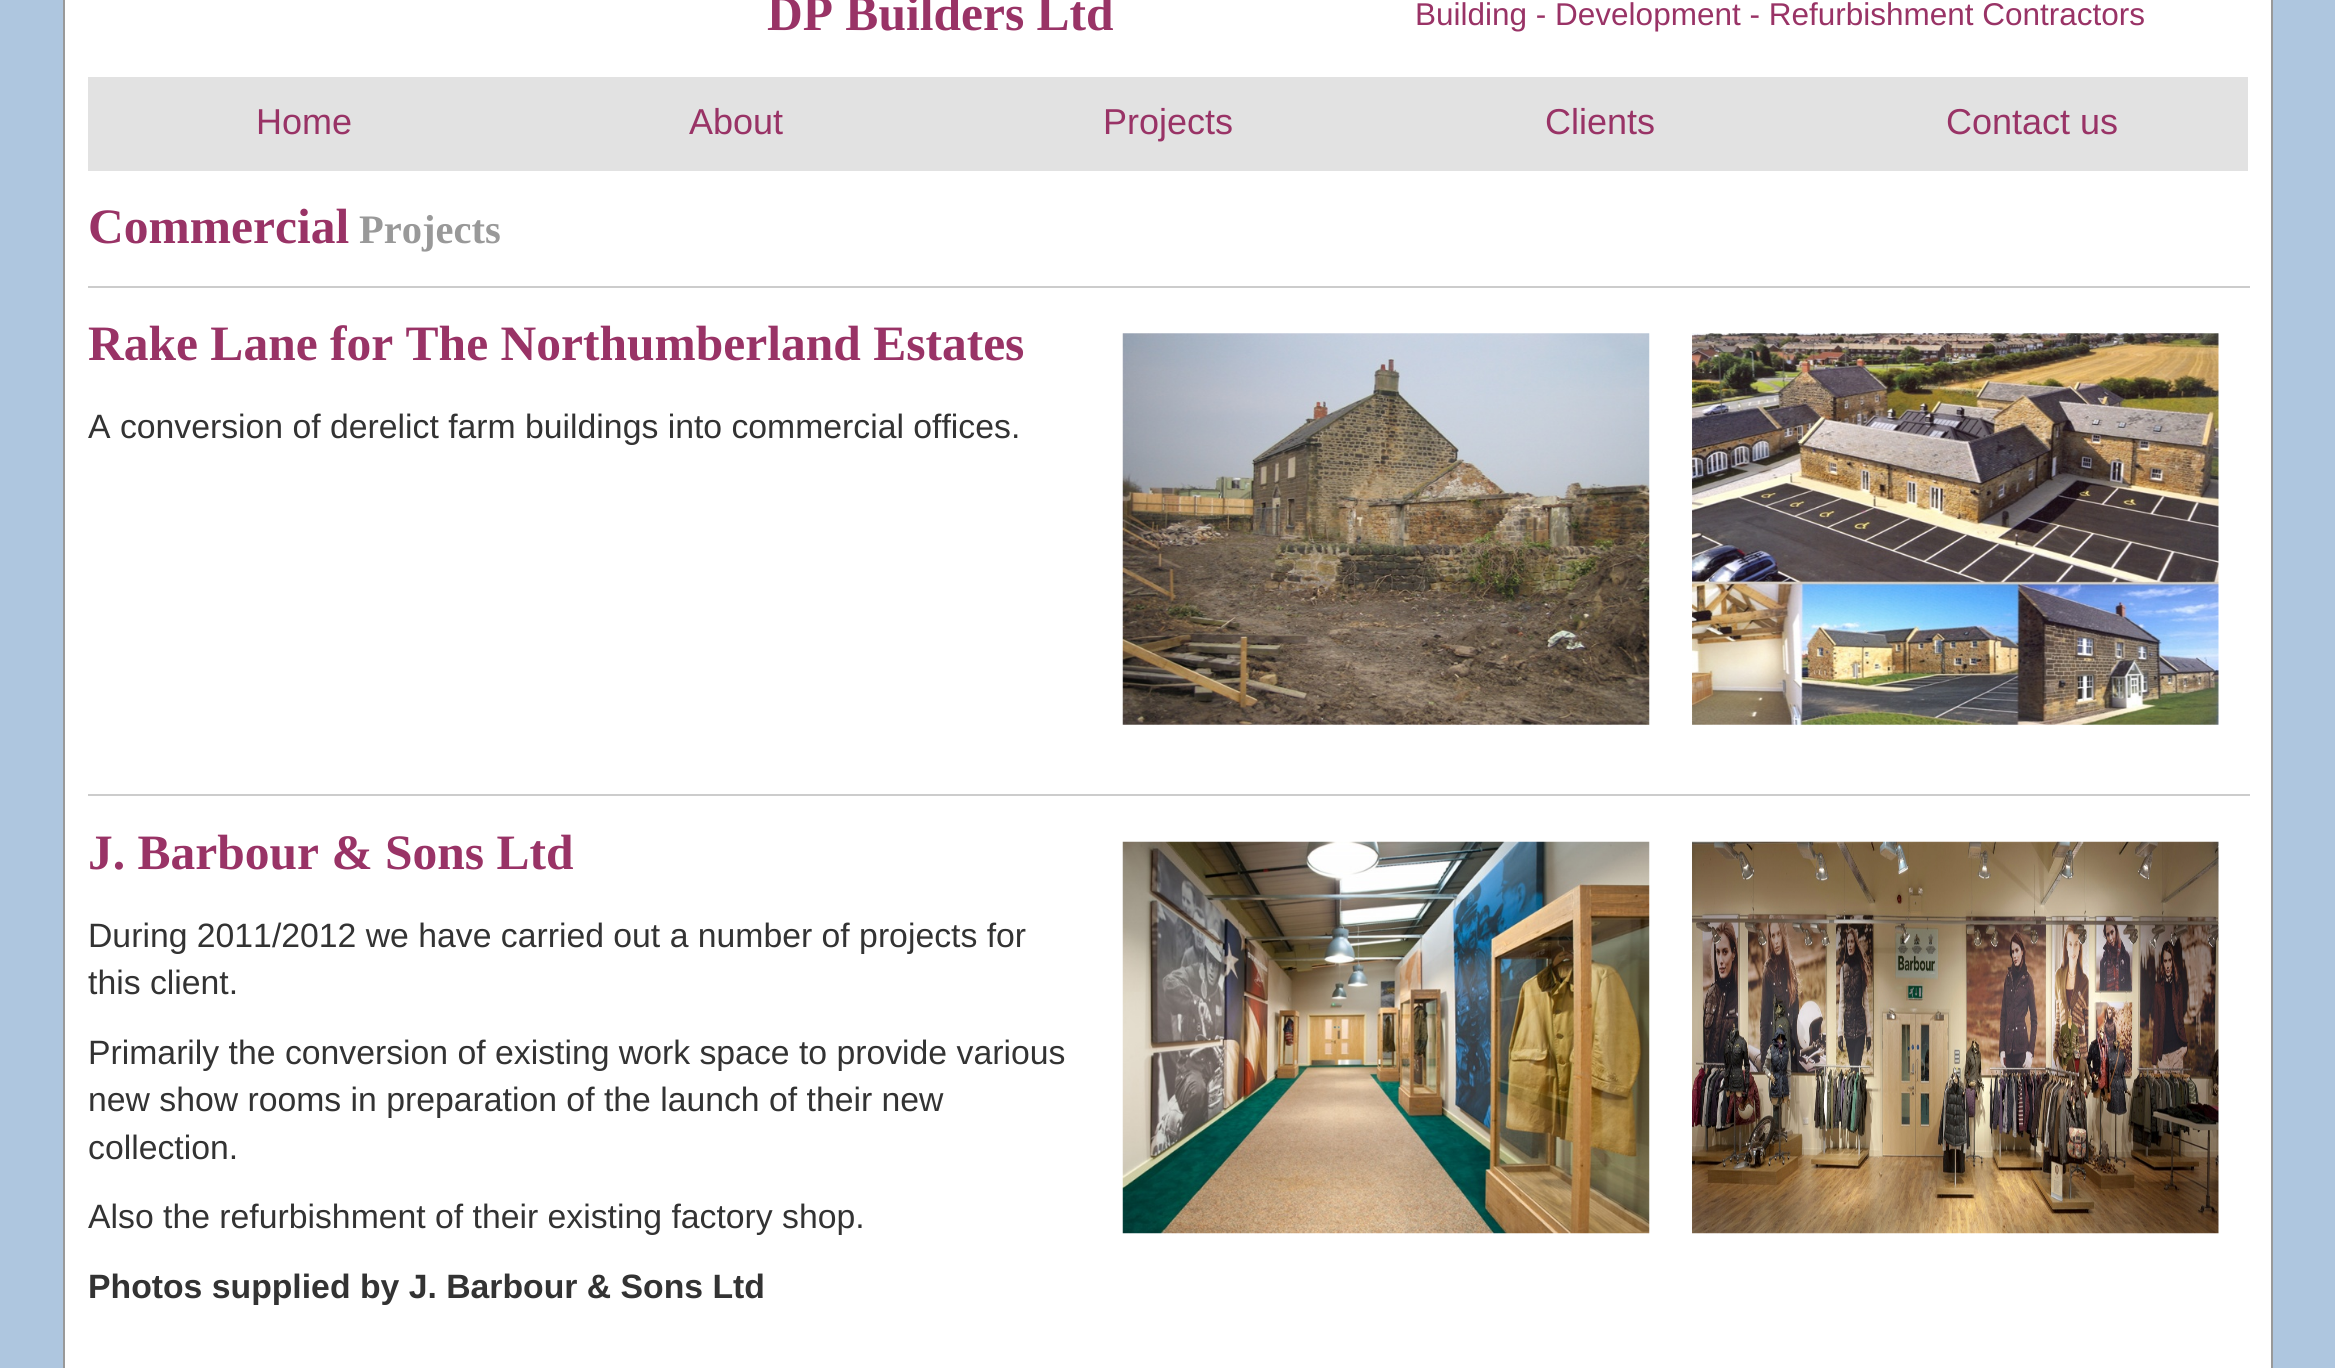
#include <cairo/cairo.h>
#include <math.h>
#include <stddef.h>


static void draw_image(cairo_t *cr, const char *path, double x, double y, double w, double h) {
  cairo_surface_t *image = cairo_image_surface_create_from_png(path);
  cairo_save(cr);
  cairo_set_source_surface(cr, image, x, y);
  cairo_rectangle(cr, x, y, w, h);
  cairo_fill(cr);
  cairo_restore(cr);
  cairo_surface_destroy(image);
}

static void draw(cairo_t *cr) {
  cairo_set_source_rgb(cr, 174 / 255.0, 198 / 255.0, 223 / 255.0);
  cairo_paint(cr);
  cairo_set_source_rgb(cr, 1, 1, 1);
  cairo_rectangle(cr, 64, -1, 2208, 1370);
  cairo_fill_preserve(cr);
  cairo_set_source_rgb(cr, 153 / 255.0, 153 / 255.0, 153 / 255.0);
  cairo_stroke(cr);
  cairo_set_source_rgb(cr, 226 / 255.0, 226 / 255.0, 226 / 255.0);
  cairo_rectangle(cr, 88, 77, 2160, 94);
  cairo_fill(cr);
  cairo_set_source_rgb(cr, 204 / 255.0, 204 / 255.0, 204 / 255.0);
  cairo_rectangle(cr, 88, 286, 2162, 2);
  cairo_fill(cr);
  draw_image(cr, "images/1.png", 1122, 333, 528, 392);
  draw_image(cr, "images/2.png", 1692, 333, 527, 392);
  cairo_rectangle(cr, 88, 794, 2162, 2);
  cairo_fill(cr);
  draw_image(cr, "images/3.png", 1122, 841, 528, 393);
  draw_image(cr, "images/4.png", 1692, 841, 527, 393);
  cairo_select_font_face(cr, "Liberation Serif", CAIRO_FONT_SLANT_NORMAL, CAIRO_FONT_WEIGHT_BOLD);
  cairo_set_font_size(cr, 49.5);
  cairo_set_source_rgb(cr, 153 / 255.0, 51 / 255.0, 102 / 255.0);
  cairo_move_to(cr, 767, 30);
  cairo_show_text(cr, "DP Builders Ltd");
  cairo_select_font_face(cr, "Liberation Sans", CAIRO_FONT_SLANT_NORMAL, CAIRO_FONT_WEIGHT_NORMAL);
  cairo_set_font_size(cr, 31.5);
  cairo_move_to(cr, 1415, 25);
  cairo_show_text(cr, "Building - Development - Refurbishment Contractors");
  cairo_set_font_size(cr, 36);
  cairo_move_to(cr, 256, 134);
  cairo_show_text(cr, "Home");
  cairo_move_to(cr, 689, 134);
  cairo_show_text(cr, "About");
  cairo_move_to(cr, 1103, 134);
  cairo_show_text(cr, "Projects");
  cairo_move_to(cr, 1545, 134);
  cairo_show_text(cr, "Clients");
  cairo_move_to(cr, 1946, 134);
  cairo_show_text(cr, "Contact us");
  cairo_select_font_face(cr, "Liberation Serif", CAIRO_FONT_SLANT_NORMAL, CAIRO_FONT_WEIGHT_BOLD);
  cairo_set_font_size(cr, 49.5);
  cairo_move_to(cr, 88, 243);
  cairo_show_text(cr, "Commercial");
  cairo_set_font_size(cr, 40.5);
  cairo_set_source_rgb(cr, 153 / 255.0, 153 / 255.0, 153 / 255.0);
  cairo_move_to(cr, 359, 243);
  cairo_show_text(cr, "Projects");
  cairo_set_font_size(cr, 49.5);
  cairo_set_source_rgb(cr, 153 / 255.0, 51 / 255.0, 102 / 255.0);
  cairo_move_to(cr, 88, 360);
  cairo_show_text(cr, "Rake Lane for The Northumberland Estates");
  cairo_select_font_face(cr, "Liberation Sans", CAIRO_FONT_SLANT_NORMAL, CAIRO_FONT_WEIGHT_NORMAL);
  cairo_set_font_size(cr, 33.75);
  cairo_set_source_rgb(cr, 51 / 255.0, 51 / 255.0, 51 / 255.0);
  cairo_move_to(cr, 88, 438);
  cairo_show_text(cr, "A conversion of derelict farm buildings into commercial offices.");
  cairo_select_font_face(cr, "Liberation Serif", CAIRO_FONT_SLANT_NORMAL, CAIRO_FONT_WEIGHT_BOLD);
  cairo_set_font_size(cr, 49.5);
  cairo_set_source_rgb(cr, 153 / 255.0, 51 / 255.0, 102 / 255.0);
  cairo_move_to(cr, 88, 869);
  cairo_show_text(cr, "J. Barbour & Sons Ltd");
  cairo_select_font_face(cr, "Liberation Sans", CAIRO_FONT_SLANT_NORMAL, CAIRO_FONT_WEIGHT_NORMAL);
  cairo_set_font_size(cr, 33.75);
  cairo_set_source_rgb(cr, 51 / 255.0, 51 / 255.0, 51 / 255.0);
  cairo_move_to(cr, 88, 947);
  cairo_show_text(cr, "During 2011/2012 we have carried out a number of projects for");
  cairo_move_to(cr, 88, 994);
  cairo_show_text(cr, "this client.");
  cairo_move_to(cr, 88, 1064);
  cairo_show_text(cr, "Primarily the conversion of existing work space to provide various");
  cairo_move_to(cr, 88, 1111);
  cairo_show_text(cr, "new show rooms in preparation of the launch of their new");
  cairo_move_to(cr, 88, 1159);
  cairo_show_text(cr, "collection.");
  cairo_move_to(cr, 88, 1228);
  cairo_show_text(cr, "Also the refurbishment of their existing factory shop.");
  cairo_select_font_face(cr, "Liberation Sans", CAIRO_FONT_SLANT_NORMAL, CAIRO_FONT_WEIGHT_BOLD);
  cairo_move_to(cr, 88, 1298);
  cairo_show_text(cr, "Photos supplied by J. Barbour & Sons Ltd");
}

int main(void) {
  cairo_surface_t *surface = cairo_image_surface_create(CAIRO_FORMAT_RGB24, 2335, 1368);
  cairo_t *cr = cairo_create(surface);
  cairo_font_options_t *options = cairo_font_options_create();
  cairo_font_options_set_hint_metrics(options, CAIRO_HINT_METRICS_OFF);
  cairo_font_options_set_hint_style(options, CAIRO_HINT_STYLE_NONE);
  cairo_set_font_options(cr, options);
  cairo_set_miter_limit(cr, 4);
  draw(cr);
  cairo_surface_write_to_png(surface, "out.png");
  cairo_font_options_destroy(options);
  cairo_destroy(cr);
  cairo_surface_destroy(surface);
  return 0;
}
